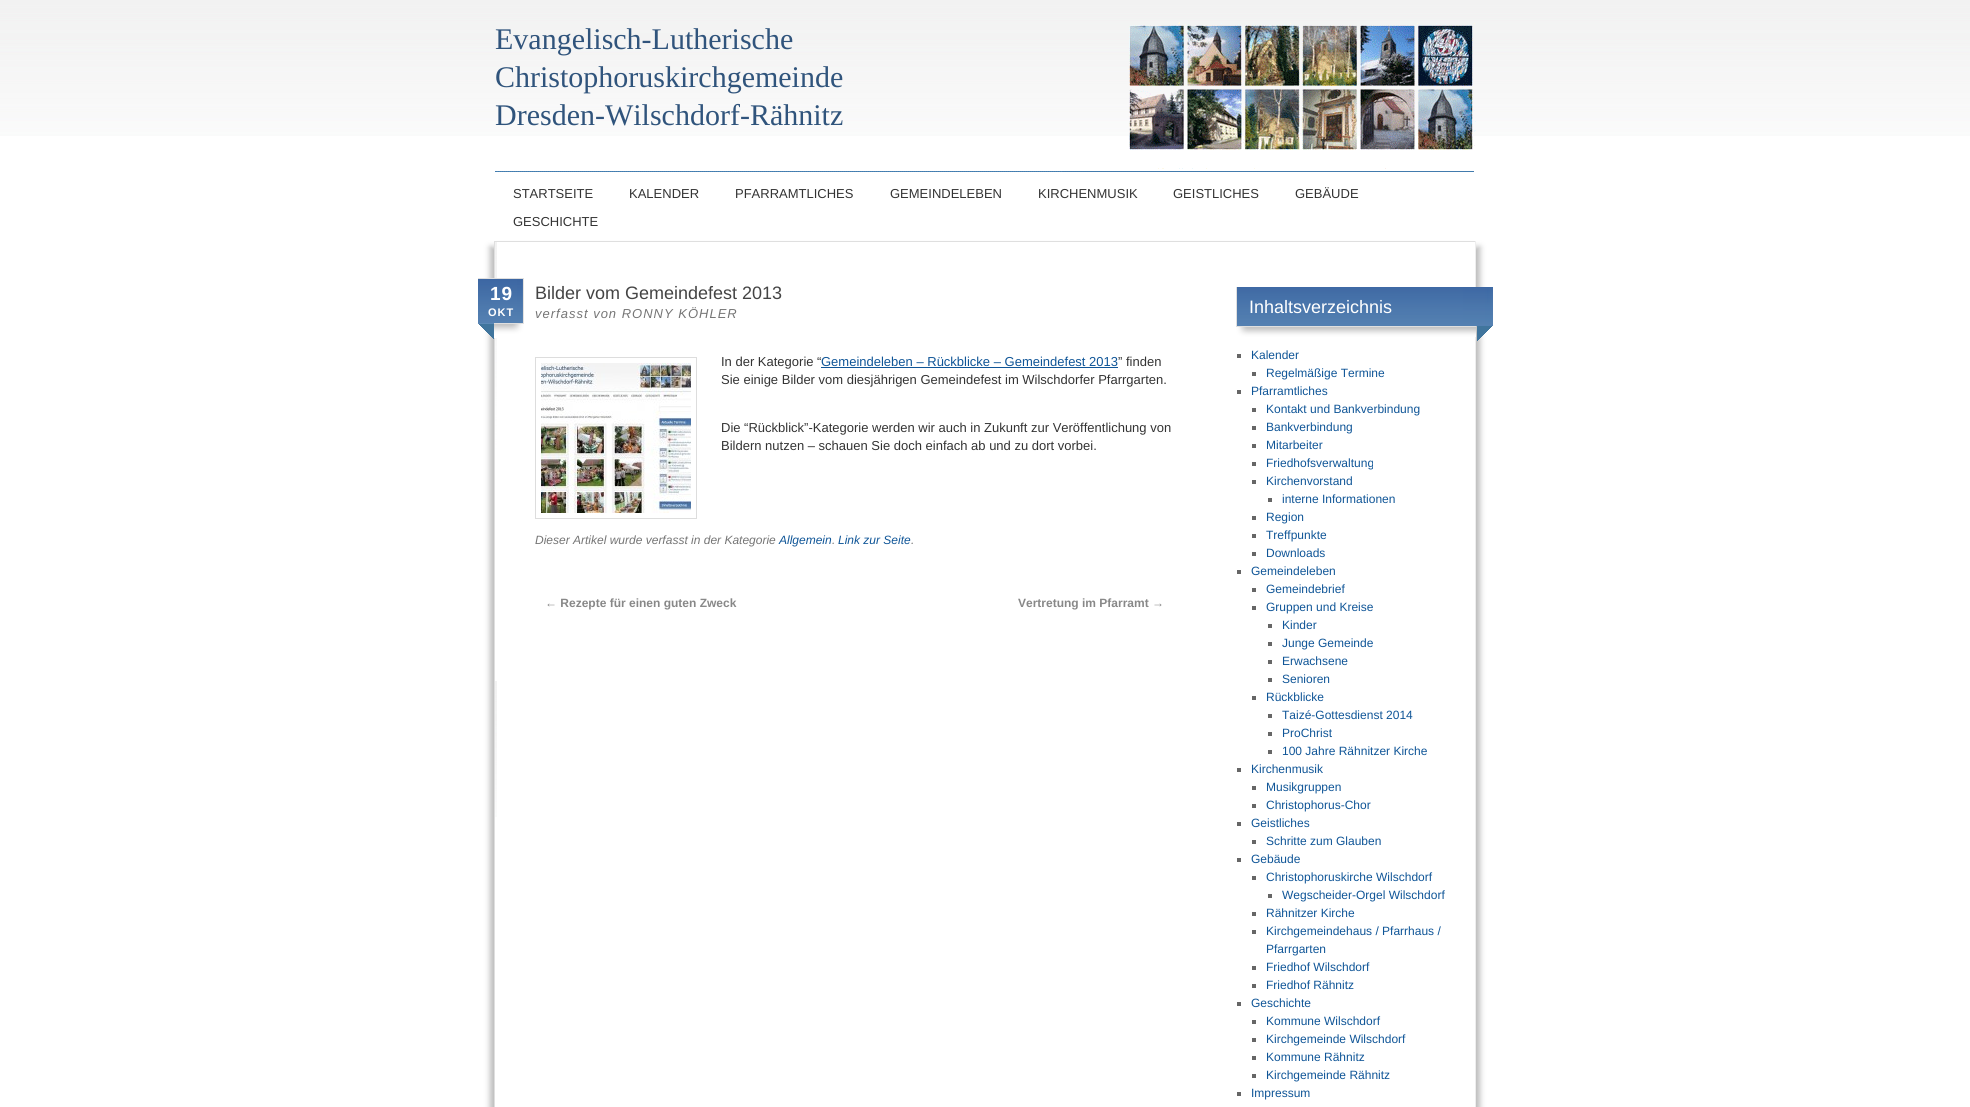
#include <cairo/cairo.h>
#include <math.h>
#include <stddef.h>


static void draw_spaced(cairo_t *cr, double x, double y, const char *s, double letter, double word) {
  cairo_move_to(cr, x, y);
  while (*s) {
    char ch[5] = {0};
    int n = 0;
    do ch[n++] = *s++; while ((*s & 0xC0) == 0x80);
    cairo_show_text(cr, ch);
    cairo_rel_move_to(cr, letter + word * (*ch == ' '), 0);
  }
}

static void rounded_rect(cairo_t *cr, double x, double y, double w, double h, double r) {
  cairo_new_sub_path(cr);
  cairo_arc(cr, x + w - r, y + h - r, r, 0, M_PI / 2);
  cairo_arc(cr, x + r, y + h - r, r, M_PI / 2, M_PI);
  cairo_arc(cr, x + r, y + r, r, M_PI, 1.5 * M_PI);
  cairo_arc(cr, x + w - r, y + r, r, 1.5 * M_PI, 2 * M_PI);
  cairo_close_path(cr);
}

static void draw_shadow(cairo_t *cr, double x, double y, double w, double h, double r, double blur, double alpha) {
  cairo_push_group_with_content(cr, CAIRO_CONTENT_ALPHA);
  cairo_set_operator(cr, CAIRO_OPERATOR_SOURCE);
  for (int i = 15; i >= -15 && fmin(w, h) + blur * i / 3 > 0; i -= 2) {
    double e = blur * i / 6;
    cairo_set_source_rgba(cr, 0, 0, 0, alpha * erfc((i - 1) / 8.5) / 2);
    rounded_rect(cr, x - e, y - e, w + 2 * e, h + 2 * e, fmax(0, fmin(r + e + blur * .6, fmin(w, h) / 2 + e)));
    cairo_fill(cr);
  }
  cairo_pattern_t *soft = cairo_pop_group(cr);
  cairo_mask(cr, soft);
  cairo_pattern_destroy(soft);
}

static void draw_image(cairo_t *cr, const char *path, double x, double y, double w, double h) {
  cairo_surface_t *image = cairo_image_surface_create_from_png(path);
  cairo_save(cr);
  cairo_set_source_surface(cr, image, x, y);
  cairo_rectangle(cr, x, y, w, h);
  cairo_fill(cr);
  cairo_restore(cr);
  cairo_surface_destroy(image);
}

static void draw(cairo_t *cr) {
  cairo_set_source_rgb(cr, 1, 1, 1);
  cairo_paint(cr);
  draw_image(cr, "images/1.png", 0, 0, 1970, 136);
  cairo_save(cr);
  cairo_set_fill_rule(cr, CAIRO_FILL_RULE_EVEN_ODD);
  cairo_new_path(cr);
  cairo_move_to(cr, 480, 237);
  cairo_line_to(cr, 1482, 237);
  cairo_line_to(cr, 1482, 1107);
  cairo_line_to(cr, 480, 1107);
  cairo_close_path(cr);
  cairo_move_to(cr, 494, 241);
  cairo_line_to(cr, 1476, 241);
  cairo_line_to(cr, 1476, 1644);
  cairo_line_to(cr, 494, 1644);
  cairo_close_path(cr);
  cairo_clip(cr);
  cairo_set_source_rgb(cr, 187 / 255.0, 187 / 255.0, 187 / 255.0);
  draw_shadow(cr, 490, 247, 982, 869, 0, 3, 1);
  cairo_restore(cr);
  cairo_save(cr);
  cairo_set_fill_rule(cr, CAIRO_FILL_RULE_EVEN_ODD);
  cairo_new_path(cr);
  cairo_move_to(cr, 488, 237);
  cairo_line_to(cr, 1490, 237);
  cairo_line_to(cr, 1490, 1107);
  cairo_line_to(cr, 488, 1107);
  cairo_close_path(cr);
  cairo_move_to(cr, 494, 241);
  cairo_line_to(cr, 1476, 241);
  cairo_line_to(cr, 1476, 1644);
  cairo_line_to(cr, 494, 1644);
  cairo_close_path(cr);
  cairo_clip(cr);
  cairo_set_source_rgb(cr, 187 / 255.0, 187 / 255.0, 187 / 255.0);
  draw_shadow(cr, 498, 247, 982, 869, 0, 3, 1);
  cairo_restore(cr);
  draw_image(cr, "images/3.png", 495, 242, 2, 575);
  cairo_set_source_rgb(cr, 223 / 255.0, 223 / 255.0, 223 / 255.0);
  cairo_rectangle(cr, 494, 241, 982, 1);
  cairo_fill(cr);
  cairo_set_source_rgb(cr, 238 / 255.0, 238 / 255.0, 238 / 255.0);
  cairo_rectangle(cr, 1475, 241, 1, 866);
  cairo_fill(cr);
  cairo_set_source_rgb(cr, 223 / 255.0, 223 / 255.0, 223 / 255.0);
  cairo_rectangle(cr, 494, 241, 1, 866);
  cairo_fill(cr);
  draw_image(cr, "images/4.png", 478, 278, 46, 61);
  cairo_rectangle(cr, 535.5, 357.5, 161, 161);
  cairo_set_source_rgb(cr, 221 / 255.0, 221 / 255.0, 221 / 255.0);
  cairo_set_line_width(cr, 1);
  cairo_stroke(cr);
  draw_image(cr, "images/5.png", 541, 363, 150, 150);
  cairo_set_source_rgb(cr, 15 / 255.0, 85 / 255.0, 151 / 255.0);
  cairo_rectangle(cr, 821, 367, 297, 1);
  cairo_fill(cr);
  draw_image(cr, "images/6.png", 1236, 287, 257, 54);
  cairo_set_source_rgb(cr, 102 / 255.0, 102 / 255.0, 102 / 255.0);
  cairo_rectangle(cr, 1237, 354, 4, 4);
  cairo_fill(cr);
  cairo_rectangle(cr, 1252, 372, 4, 4);
  cairo_fill(cr);
  cairo_rectangle(cr, 1237, 390, 4, 4);
  cairo_fill(cr);
  cairo_rectangle(cr, 1252, 408, 4, 4);
  cairo_fill(cr);
  cairo_rectangle(cr, 1252, 426, 4, 4);
  cairo_fill(cr);
  cairo_rectangle(cr, 1252, 444, 4, 4);
  cairo_fill(cr);
  cairo_rectangle(cr, 1252, 462, 4, 4);
  cairo_fill(cr);
  cairo_rectangle(cr, 1252, 480, 4, 4);
  cairo_fill(cr);
  cairo_rectangle(cr, 1268, 498, 4, 4);
  cairo_fill(cr);
  cairo_rectangle(cr, 1252, 516, 4, 4);
  cairo_fill(cr);
  cairo_rectangle(cr, 1252, 534, 4, 4);
  cairo_fill(cr);
  cairo_rectangle(cr, 1252, 552, 4, 4);
  cairo_fill(cr);
  cairo_rectangle(cr, 1237, 570, 4, 4);
  cairo_fill(cr);
  cairo_rectangle(cr, 1252, 588, 4, 4);
  cairo_fill(cr);
  cairo_rectangle(cr, 1252, 606, 4, 4);
  cairo_fill(cr);
  cairo_rectangle(cr, 1268, 624, 4, 4);
  cairo_fill(cr);
  cairo_rectangle(cr, 1268, 642, 4, 4);
  cairo_fill(cr);
  cairo_rectangle(cr, 1268, 660, 4, 4);
  cairo_fill(cr);
  cairo_rectangle(cr, 1268, 678, 4, 4);
  cairo_fill(cr);
  cairo_rectangle(cr, 1252, 696, 4, 4);
  cairo_fill(cr);
  cairo_rectangle(cr, 1268, 714, 4, 4);
  cairo_fill(cr);
  cairo_rectangle(cr, 1268, 732, 4, 4);
  cairo_fill(cr);
  cairo_rectangle(cr, 1268, 750, 4, 4);
  cairo_fill(cr);
  cairo_rectangle(cr, 1237, 768, 4, 4);
  cairo_fill(cr);
  cairo_rectangle(cr, 1252, 786, 4, 4);
  cairo_fill(cr);
  cairo_rectangle(cr, 1252, 804, 4, 4);
  cairo_fill(cr);
  cairo_rectangle(cr, 1237, 822, 4, 4);
  cairo_fill(cr);
  cairo_rectangle(cr, 1252, 840, 4, 4);
  cairo_fill(cr);
  cairo_rectangle(cr, 1237, 858, 4, 4);
  cairo_fill(cr);
  cairo_rectangle(cr, 1252, 876, 4, 4);
  cairo_fill(cr);
  cairo_rectangle(cr, 1268, 894, 4, 4);
  cairo_fill(cr);
  cairo_rectangle(cr, 1252, 912, 4, 4);
  cairo_fill(cr);
  cairo_rectangle(cr, 1252, 930, 4, 4);
  cairo_fill(cr);
  cairo_rectangle(cr, 1252, 966, 4, 4);
  cairo_fill(cr);
  cairo_rectangle(cr, 1252, 984, 4, 4);
  cairo_fill(cr);
  cairo_rectangle(cr, 1237, 1002, 4, 4);
  cairo_fill(cr);
  cairo_rectangle(cr, 1252, 1020, 4, 4);
  cairo_fill(cr);
  cairo_rectangle(cr, 1252, 1038, 4, 4);
  cairo_fill(cr);
  cairo_rectangle(cr, 1252, 1056, 4, 4);
  cairo_fill(cr);
  cairo_rectangle(cr, 1252, 1074, 4, 4);
  cairo_fill(cr);
  cairo_rectangle(cr, 1237, 1092, 4, 4);
  cairo_fill(cr);
  cairo_select_font_face(cr, "Liberation Serif", CAIRO_FONT_SLANT_NORMAL, CAIRO_FONT_WEIGHT_NORMAL);
  cairo_set_font_size(cr, 30);
  cairo_set_source_rgb(cr, 48 / 255.0, 84 / 255.0, 124 / 255.0);
  cairo_move_to(cr, 495, 49);
  cairo_show_text(cr, "Evangelisch-Lutherische");
  cairo_move_to(cr, 495, 87);
  cairo_show_text(cr, "Christophoruskirchgemeinde");
  cairo_move_to(cr, 495, 125);
  cairo_show_text(cr, "Dresden-Wilschdorf-Rähnitz");
  draw_image(cr, "images/2.png", 495, 22, 981, 150);
  cairo_select_font_face(cr, "Liberation Sans", CAIRO_FONT_SLANT_NORMAL, CAIRO_FONT_WEIGHT_NORMAL);
  cairo_set_font_size(cr, 13);
  cairo_set_source_rgb(cr, 51 / 255.0, 51 / 255.0, 51 / 255.0);
  cairo_move_to(cr, 513, 198);
  cairo_show_text(cr, "STARTSEITE");
  cairo_move_to(cr, 629, 198);
  cairo_show_text(cr, "KALENDER");
  cairo_move_to(cr, 735, 198);
  cairo_show_text(cr, "PFARRAMTLICHES");
  cairo_move_to(cr, 890, 198);
  cairo_show_text(cr, "GEMEINDELEBEN");
  cairo_move_to(cr, 1038, 198);
  cairo_show_text(cr, "KIRCHENMUSIK");
  cairo_move_to(cr, 1173, 198);
  cairo_show_text(cr, "GEISTLICHES");
  cairo_move_to(cr, 1295, 198);
  cairo_show_text(cr, "GEBÄUDE");
  cairo_move_to(cr, 513, 226);
  cairo_show_text(cr, "GESCHICHTE");
  cairo_set_font_size(cr, 18);
  cairo_set_source_rgb(cr, 68 / 255.0, 68 / 255.0, 68 / 255.0);
  cairo_move_to(cr, 535, 299);
  cairo_show_text(cr, "Bilder vom Gemeindefest 2013");
  cairo_select_font_face(cr, "Liberation Sans", CAIRO_FONT_SLANT_NORMAL, CAIRO_FONT_WEIGHT_BOLD);
  cairo_set_font_size(cr, 19);
  cairo_set_source_rgb(cr, 1, 1, 1);
  draw_spaced(cr, 490, 300, "19", 1, 0);
  cairo_set_font_size(cr, 11);
  draw_spaced(cr, 488, 316, "OKT", 1, 0);
  cairo_select_font_face(cr, "Liberation Sans", CAIRO_FONT_SLANT_ITALIC, CAIRO_FONT_WEIGHT_NORMAL);
  cairo_set_font_size(cr, 13);
  cairo_set_source_rgb(cr, 117 / 255.0, 117 / 255.0, 117 / 255.0);
  draw_spaced(cr, 535, 318, "verfasst von RONNY KÖHLER", 1, 0);
  cairo_select_font_face(cr, "Liberation Sans", CAIRO_FONT_SLANT_NORMAL, CAIRO_FONT_WEIGHT_NORMAL);
  cairo_set_source_rgb(cr, 51 / 255.0, 51 / 255.0, 51 / 255.0);
  cairo_move_to(cr, 721, 366);
  cairo_show_text(cr, "In der Kategorie “");
  cairo_set_source_rgb(cr, 15 / 255.0, 85 / 255.0, 151 / 255.0);
  cairo_move_to(cr, 821, 366);
  cairo_show_text(cr, "Gemeindeleben – Rückblicke – Gemeindefest 2013");
  cairo_set_source_rgb(cr, 51 / 255.0, 51 / 255.0, 51 / 255.0);
  cairo_move_to(cr, 1118, 366);
  cairo_show_text(cr, "” finden");
  cairo_move_to(cr, 721, 384);
  cairo_show_text(cr, "Sie einige Bilder vom diesjährigen Gemeindefest im Wilschdorfer Pfarrgarten.");
  cairo_move_to(cr, 721, 432);
  cairo_show_text(cr, "Die “Rückblick”-Kategorie werden wir auch in Zukunft zur Veröffentlichung von");
  cairo_move_to(cr, 721, 450);
  cairo_show_text(cr, "Bildern nutzen – schauen Sie doch einfach ab und zu dort vorbei.");
  cairo_select_font_face(cr, "Liberation Sans", CAIRO_FONT_SLANT_ITALIC, CAIRO_FONT_WEIGHT_NORMAL);
  cairo_set_font_size(cr, 12);
  cairo_set_source_rgb(cr, 117 / 255.0, 117 / 255.0, 117 / 255.0);
  cairo_move_to(cr, 535, 544);
  cairo_show_text(cr, "Dieser Artikel wurde verfasst in der Kategorie");
  cairo_set_source_rgb(cr, 15 / 255.0, 85 / 255.0, 151 / 255.0);
  cairo_move_to(cr, 779, 544);
  cairo_show_text(cr, "Allgemein");
  cairo_set_source_rgb(cr, 117 / 255.0, 117 / 255.0, 117 / 255.0);
  cairo_move_to(cr, 832, 544);
  cairo_show_text(cr, ".");
  cairo_set_source_rgb(cr, 15 / 255.0, 85 / 255.0, 151 / 255.0);
  cairo_move_to(cr, 838, 544);
  cairo_show_text(cr, "Link zur Seite");
  cairo_set_source_rgb(cr, 117 / 255.0, 117 / 255.0, 117 / 255.0);
  cairo_move_to(cr, 911, 544);
  cairo_show_text(cr, ".");
  cairo_select_font_face(cr, "Liberation Sans", CAIRO_FONT_SLANT_NORMAL, CAIRO_FONT_WEIGHT_BOLD);
  cairo_set_source_rgb(cr, 136 / 255.0, 136 / 255.0, 136 / 255.0);
  cairo_move_to(cr, 545, 607);
  cairo_show_text(cr, "← Rezepte für einen guten Zweck");
  cairo_move_to(cr, 1018, 607);
  cairo_show_text(cr, "Vertretung im Pfarramt →");
  cairo_select_font_face(cr, "Liberation Sans", CAIRO_FONT_SLANT_NORMAL, CAIRO_FONT_WEIGHT_NORMAL);
  cairo_set_font_size(cr, 18);
  cairo_set_source_rgb(cr, 1, 1, 1);
  cairo_move_to(cr, 1249, 313);
  cairo_show_text(cr, "Inhaltsverzeichnis");
  cairo_set_font_size(cr, 12);
  cairo_set_source_rgb(cr, 15 / 255.0, 85 / 255.0, 151 / 255.0);
  cairo_move_to(cr, 1251, 359);
  cairo_show_text(cr, "Kalender");
  cairo_move_to(cr, 1266, 377);
  cairo_show_text(cr, "Regelmäßige Termine");
  cairo_move_to(cr, 1251, 395);
  cairo_show_text(cr, "Pfarramtliches");
  cairo_move_to(cr, 1266, 413);
  cairo_show_text(cr, "Kontakt und Bankverbindung");
  cairo_move_to(cr, 1266, 431);
  cairo_show_text(cr, "Bankverbindung");
  cairo_move_to(cr, 1266, 449);
  cairo_show_text(cr, "Mitarbeiter");
  cairo_move_to(cr, 1266, 467);
  cairo_show_text(cr, "Friedhofsverwaltung");
  cairo_move_to(cr, 1266, 485);
  cairo_show_text(cr, "Kirchenvorstand");
  cairo_move_to(cr, 1282, 503);
  cairo_show_text(cr, "interne Informationen");
  cairo_move_to(cr, 1266, 521);
  cairo_show_text(cr, "Region");
  cairo_move_to(cr, 1266, 539);
  cairo_show_text(cr, "Treffpunkte");
  cairo_move_to(cr, 1266, 557);
  cairo_show_text(cr, "Downloads");
  cairo_move_to(cr, 1251, 575);
  cairo_show_text(cr, "Gemeindeleben");
  cairo_move_to(cr, 1266, 593);
  cairo_show_text(cr, "Gemeindebrief");
  cairo_move_to(cr, 1266, 611);
  cairo_show_text(cr, "Gruppen und Kreise");
  cairo_move_to(cr, 1282, 629);
  cairo_show_text(cr, "Kinder");
  cairo_move_to(cr, 1282, 647);
  cairo_show_text(cr, "Junge Gemeinde");
  cairo_move_to(cr, 1282, 665);
  cairo_show_text(cr, "Erwachsene");
  cairo_move_to(cr, 1282, 683);
  cairo_show_text(cr, "Senioren");
  cairo_move_to(cr, 1266, 701);
  cairo_show_text(cr, "Rückblicke");
  cairo_move_to(cr, 1282, 719);
  cairo_show_text(cr, "Taizé-Gottesdienst 2014");
  cairo_move_to(cr, 1282, 737);
  cairo_show_text(cr, "ProChrist");
  cairo_move_to(cr, 1282, 755);
  cairo_show_text(cr, "100 Jahre Rähnitzer Kirche");
  cairo_move_to(cr, 1251, 773);
  cairo_show_text(cr, "Kirchenmusik");
  cairo_move_to(cr, 1266, 791);
  cairo_show_text(cr, "Musikgruppen");
  cairo_move_to(cr, 1266, 809);
  cairo_show_text(cr, "Christophorus-Chor");
  cairo_move_to(cr, 1251, 827);
  cairo_show_text(cr, "Geistliches");
  cairo_move_to(cr, 1266, 845);
  cairo_show_text(cr, "Schritte zum Glauben");
  cairo_move_to(cr, 1251, 863);
  cairo_show_text(cr, "Gebäude");
  cairo_move_to(cr, 1266, 881);
  cairo_show_text(cr, "Christophoruskirche Wilschdorf");
  cairo_move_to(cr, 1282, 899);
  cairo_show_text(cr, "Wegscheider-Orgel Wilschdorf");
  cairo_move_to(cr, 1266, 917);
  cairo_show_text(cr, "Rähnitzer Kirche");
  cairo_move_to(cr, 1266, 935);
  cairo_show_text(cr, "Kirchgemeindehaus / Pfarrhaus /");
  cairo_move_to(cr, 1266, 953);
  cairo_show_text(cr, "Pfarrgarten");
  cairo_move_to(cr, 1266, 971);
  cairo_show_text(cr, "Friedhof Wilschdorf");
  cairo_move_to(cr, 1266, 989);
  cairo_show_text(cr, "Friedhof Rähnitz");
  cairo_move_to(cr, 1251, 1007);
  cairo_show_text(cr, "Geschichte");
  cairo_move_to(cr, 1266, 1025);
  cairo_show_text(cr, "Kommune Wilschdorf");
  cairo_move_to(cr, 1266, 1043);
  cairo_show_text(cr, "Kirchgemeinde Wilschdorf");
  cairo_move_to(cr, 1266, 1061);
  cairo_show_text(cr, "Kommune Rähnitz");
  cairo_move_to(cr, 1266, 1079);
  cairo_show_text(cr, "Kirchgemeinde Rähnitz");
  cairo_move_to(cr, 1251, 1097);
  cairo_show_text(cr, "Impressum");
}

int main(void) {
  cairo_surface_t *surface = cairo_image_surface_create(CAIRO_FORMAT_RGB24, 1970, 1107);
  cairo_t *cr = cairo_create(surface);
  cairo_font_options_t *options = cairo_font_options_create();
  cairo_font_options_set_hint_metrics(options, CAIRO_HINT_METRICS_OFF);
  cairo_font_options_set_hint_style(options, CAIRO_HINT_STYLE_NONE);
  cairo_set_font_options(cr, options);
  cairo_set_miter_limit(cr, 4);
  draw(cr);
  cairo_surface_write_to_png(surface, "out.png");
  cairo_font_options_destroy(options);
  cairo_destroy(cr);
  cairo_surface_destroy(surface);
  return 0;
}
